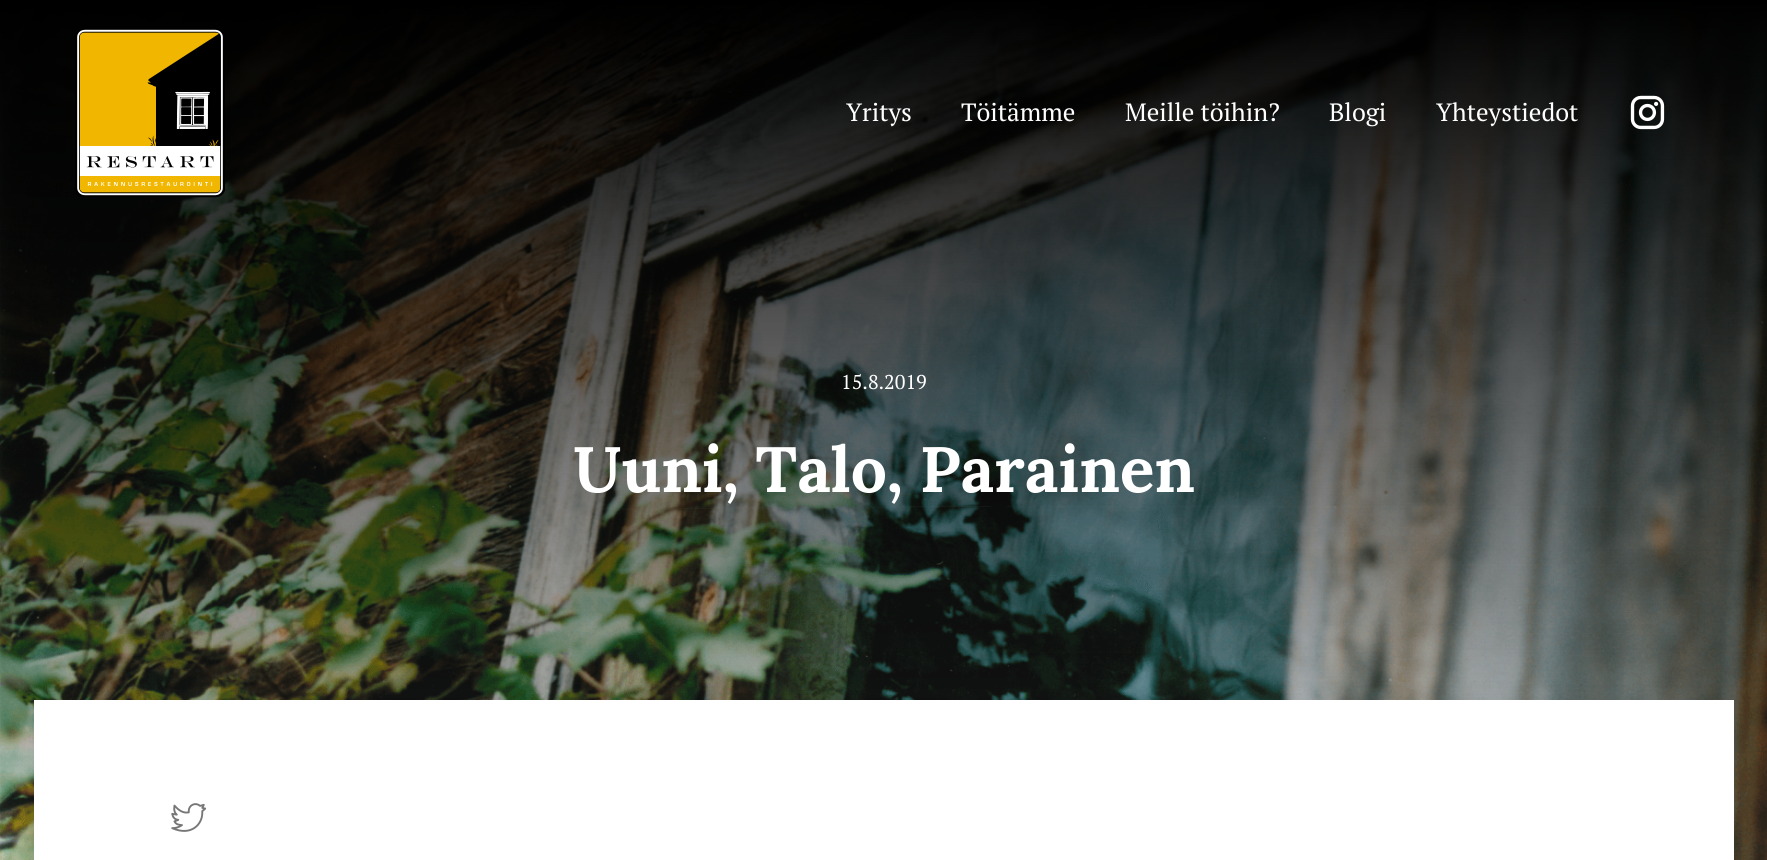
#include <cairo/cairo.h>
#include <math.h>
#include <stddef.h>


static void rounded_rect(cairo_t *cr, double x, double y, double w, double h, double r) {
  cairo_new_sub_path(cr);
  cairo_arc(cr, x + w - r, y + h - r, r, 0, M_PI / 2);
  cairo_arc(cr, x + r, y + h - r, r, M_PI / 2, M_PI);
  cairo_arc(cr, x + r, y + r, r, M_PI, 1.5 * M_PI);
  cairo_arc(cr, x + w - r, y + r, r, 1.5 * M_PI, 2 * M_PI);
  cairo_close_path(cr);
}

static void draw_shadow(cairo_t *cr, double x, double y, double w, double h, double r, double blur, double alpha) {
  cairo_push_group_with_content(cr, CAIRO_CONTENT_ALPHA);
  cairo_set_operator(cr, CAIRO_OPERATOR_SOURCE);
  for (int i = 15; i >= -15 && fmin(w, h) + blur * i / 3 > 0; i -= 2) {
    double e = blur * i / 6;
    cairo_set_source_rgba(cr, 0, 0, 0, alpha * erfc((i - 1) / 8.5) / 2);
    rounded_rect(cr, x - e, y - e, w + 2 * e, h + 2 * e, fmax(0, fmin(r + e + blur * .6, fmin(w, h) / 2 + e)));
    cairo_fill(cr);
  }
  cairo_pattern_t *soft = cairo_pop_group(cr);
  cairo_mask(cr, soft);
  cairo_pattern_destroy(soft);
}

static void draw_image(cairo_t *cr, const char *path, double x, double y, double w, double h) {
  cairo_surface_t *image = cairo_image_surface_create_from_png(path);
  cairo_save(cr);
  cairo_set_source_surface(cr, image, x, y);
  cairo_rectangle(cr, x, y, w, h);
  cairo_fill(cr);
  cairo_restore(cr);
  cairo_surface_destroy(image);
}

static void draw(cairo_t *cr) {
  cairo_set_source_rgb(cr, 1, 1, 1);
  cairo_paint(cr);
  draw_image(cr, "images/3.png", 0, 0, 1767, 860);
  draw_image(cr, "images/1.png", 75, 29, 150, 169);
  draw_image(cr, "images/2.png", 1630, 95, 35, 35);
  cairo_set_source_rgb(cr, 34 / 255.0, 34 / 255.0, 34 / 255.0);
  draw_shadow(cr, 34, 700, 1700, 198, 0, 12.5, 0.08);
  cairo_set_source_rgb(cr, 1, 1, 1);
  cairo_rectangle(cr, 34, 700, 1700, 160);
  cairo_fill(cr);
  draw_image(cr, "images/4.png", 171, 803, 35, 29);
  cairo_select_font_face(cr, "PT Serif", CAIRO_FONT_SLANT_NORMAL, CAIRO_FONT_WEIGHT_NORMAL);
  cairo_set_font_size(cr, 25);
  cairo_move_to(cr, 846, 121);
  cairo_show_text(cr, "Yritys");
  cairo_move_to(cr, 961, 121);
  cairo_show_text(cr, "Töitämme");
  cairo_move_to(cr, 1125, 121);
  cairo_show_text(cr, "Meille töihin?");
  cairo_move_to(cr, 1329, 121);
  cairo_show_text(cr, "Blogi");
  cairo_move_to(cr, 1436, 121);
  cairo_show_text(cr, "Yhteystiedot");
  cairo_set_font_size(cr, 20);
  cairo_move_to(cr, 841, 389);
  cairo_show_text(cr, "15.8.2019");
  cairo_select_font_face(cr, "Lora", CAIRO_FONT_SLANT_NORMAL, CAIRO_FONT_WEIGHT_BOLD);
  cairo_set_font_size(cr, 64);
  cairo_move_to(cr, 573, 492);
  cairo_show_text(cr, "Uuni, Talo, Parainen");
}

int main(void) {
  cairo_surface_t *surface = cairo_image_surface_create(CAIRO_FORMAT_RGB24, 1767, 860);
  cairo_t *cr = cairo_create(surface);
  cairo_font_options_t *options = cairo_font_options_create();
  cairo_font_options_set_hint_metrics(options, CAIRO_HINT_METRICS_OFF);
  cairo_font_options_set_hint_style(options, CAIRO_HINT_STYLE_NONE);
  cairo_set_font_options(cr, options);
  cairo_set_miter_limit(cr, 4);
  draw(cr);
  cairo_surface_write_to_png(surface, "out.png");
  cairo_font_options_destroy(options);
  cairo_destroy(cr);
  cairo_surface_destroy(surface);
  return 0;
}
